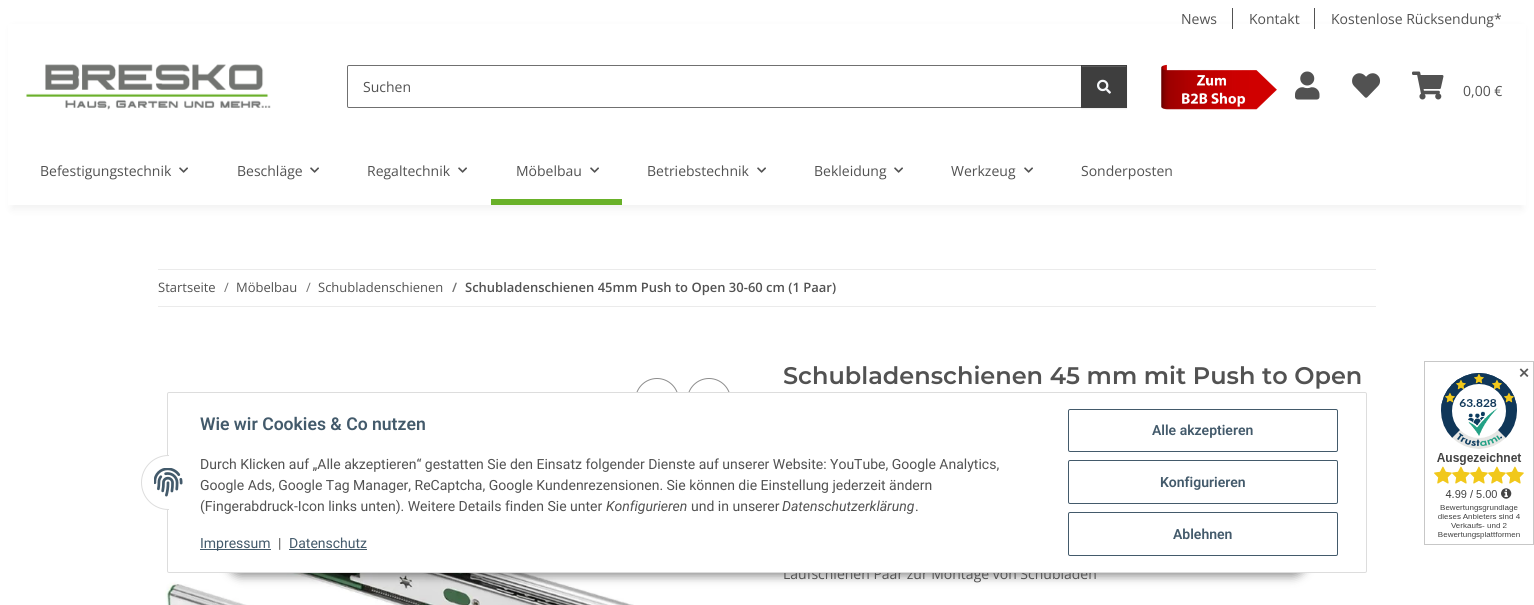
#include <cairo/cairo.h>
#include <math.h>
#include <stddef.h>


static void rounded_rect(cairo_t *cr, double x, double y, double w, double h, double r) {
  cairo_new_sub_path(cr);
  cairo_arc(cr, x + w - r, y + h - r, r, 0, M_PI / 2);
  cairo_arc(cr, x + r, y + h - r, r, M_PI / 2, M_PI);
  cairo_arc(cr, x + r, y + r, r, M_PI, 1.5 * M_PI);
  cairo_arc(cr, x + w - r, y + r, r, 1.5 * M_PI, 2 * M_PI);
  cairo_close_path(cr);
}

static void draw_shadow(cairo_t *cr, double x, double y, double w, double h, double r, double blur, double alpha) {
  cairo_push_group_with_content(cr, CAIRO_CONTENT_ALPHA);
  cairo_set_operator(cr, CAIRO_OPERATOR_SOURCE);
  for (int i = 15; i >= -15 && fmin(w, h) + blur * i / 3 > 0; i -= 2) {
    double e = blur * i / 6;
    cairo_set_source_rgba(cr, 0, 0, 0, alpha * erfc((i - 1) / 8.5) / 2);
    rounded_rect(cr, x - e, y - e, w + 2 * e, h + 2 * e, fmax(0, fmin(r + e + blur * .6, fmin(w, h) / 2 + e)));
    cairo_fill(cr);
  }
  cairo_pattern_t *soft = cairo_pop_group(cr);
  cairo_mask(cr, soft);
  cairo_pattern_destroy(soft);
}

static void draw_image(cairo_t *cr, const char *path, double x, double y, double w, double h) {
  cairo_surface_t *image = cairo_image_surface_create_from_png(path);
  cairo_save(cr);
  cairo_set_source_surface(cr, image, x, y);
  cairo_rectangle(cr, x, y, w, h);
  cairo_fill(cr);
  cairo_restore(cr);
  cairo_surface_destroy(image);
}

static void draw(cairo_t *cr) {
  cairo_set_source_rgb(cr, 1, 1, 1);
  cairo_paint(cr);
  cairo_set_source_rgb(cr, 0, 0, 0);
  draw_shadow(cr, 12, 28, 1510, 181, 0, 4.5, 0.06);
  cairo_set_source_rgb(cr, 1, 1, 1);
  cairo_rectangle(cr, 8, 24, 1518, 181);
  cairo_fill(cr);
  cairo_set_source_rgb(cr, 82 / 255.0, 82 / 255.0, 82 / 255.0);
  cairo_rectangle(cr, 1232, 8, 1, 21);
  cairo_fill(cr);
  cairo_rectangle(cr, 1314, 8, 1, 21);
  cairo_fill(cr);
  draw_image(cr, "images/1.png", 26, 64, 245, 46);
  cairo_new_path(cr);
  cairo_move_to(cr, 349, 65.5);
  cairo_line_to(cr, 1081.5, 65.5);
  cairo_line_to(cr, 1081.5, 107.5);
  cairo_line_to(cr, 349, 107.5);
  cairo_curve_to(cr, 348, 107.5, 347.5, 107, 347.5, 106);
  cairo_line_to(cr, 347.5, 67);
  cairo_curve_to(cr, 347.5, 66, 348, 65.5, 349, 65.5);
  cairo_close_path(cr);
  cairo_set_source_rgb(cr, 112 / 255.0, 112 / 255.0, 112 / 255.0);
  cairo_set_line_width(cr, 1);
  cairo_stroke(cr);
  cairo_set_source_rgb(cr, 0, 0, 0);
  draw_shadow(cr, 1081, 66, 46, 43, 0, 0.5, 0.07);
  cairo_set_source_rgb(cr, 62 / 255.0, 62 / 255.0, 62 / 255.0);
  cairo_rectangle(cr, 1081, 65, 46, 43);
  cairo_fill(cr);
  cairo_set_source_rgb(cr, 91 / 255.0, 91 / 255.0, 91 / 255.0);
  cairo_rectangle(cr, 1082, 66, 44, 1);
  cairo_fill(cr);
  draw_image(cr, "images/2.png", 1097, 79, 14, 15);
  draw_image(cr, "images/3.png", 1161, 64, 116, 46);
  draw_image(cr, "images/4.png", 1295, 71, 25, 29);
  draw_image(cr, "images/5.png", 1352, 73, 29, 25);
  draw_image(cr, "images/6.png", 1412, 71, 32, 29);
  draw_image(cr, "images/7.png", 179, 167, 9, 6);
  draw_image(cr, "images/7.png", 310, 167, 9, 6);
  draw_image(cr, "images/7.png", 458, 167, 9, 6);
  draw_image(cr, "images/7.png", 590, 167, 9, 6);
  cairo_set_source_rgb(cr, 105 / 255.0, 177 / 255.0, 41 / 255.0);
  cairo_rectangle(cr, 491, 199, 131, 6);
  cairo_fill(cr);
  draw_image(cr, "images/7.png", 757, 167, 9, 6);
  draw_image(cr, "images/7.png", 894, 167, 9, 6);
  draw_image(cr, "images/7.png", 1024, 167, 9, 6);
  cairo_set_source_rgb(cr, 235 / 255.0, 235 / 255.0, 235 / 255.0);
  cairo_rectangle(cr, 158, 269, 1218, 1);
  cairo_fill(cr);
  cairo_rectangle(cr, 158, 306, 1218, 1);
  cairo_fill(cr);
  cairo_arc(cr, 657, 400, 21.5, 0, 2 * M_PI);
  cairo_set_source_rgb(cr, 141 / 255.0, 141 / 255.0, 141 / 255.0);
  cairo_stroke(cr);
  cairo_arc(cr, 709, 400, 21.5, 0, 2 * M_PI);
  cairo_stroke(cr);
  draw_image(cr, "images/8.png", 165, 509, 469, 96);
  draw_image(cr, "images/9.png", 1424, 361, 110, 184);
  cairo_set_source_rgb(cr, 0, 0, 0);
  draw_shadow(cr, 228, 544, 1078, 32, 16, 5, 0.45);
  cairo_select_font_face(cr, "Open Sans", CAIRO_FONT_SLANT_NORMAL, CAIRO_FONT_WEIGHT_NORMAL);
  cairo_set_font_size(cr, 14);
  cairo_set_source_rgb(cr, 82 / 255.0, 82 / 255.0, 82 / 255.0);
  cairo_move_to(cr, 1181, 24);
  cairo_show_text(cr, "News");
  cairo_move_to(cr, 1249, 24);
  cairo_show_text(cr, "Kontakt");
  cairo_move_to(cr, 1331, 24);
  cairo_show_text(cr, "Kostenlose Rücksendung*");
  cairo_move_to(cr, 363, 92);
  cairo_show_text(cr, "Suchen");
  cairo_move_to(cr, 1463, 96);
  cairo_show_text(cr, "0,00 €");
  cairo_move_to(cr, 40, 176);
  cairo_show_text(cr, "Befestigungstechnik");
  cairo_move_to(cr, 237, 176);
  cairo_show_text(cr, "Beschläge");
  cairo_move_to(cr, 367, 176);
  cairo_show_text(cr, "Regaltechnik");
  cairo_move_to(cr, 516, 176);
  cairo_show_text(cr, "Möbelbau");
  cairo_move_to(cr, 647, 176);
  cairo_show_text(cr, "Betriebstechnik");
  cairo_move_to(cr, 814, 176);
  cairo_show_text(cr, "Bekleidung");
  cairo_move_to(cr, 951, 176);
  cairo_show_text(cr, "Werkzeug");
  cairo_move_to(cr, 1081, 176);
  cairo_show_text(cr, "Sonderposten");
  cairo_set_font_size(cr, 13);
  cairo_move_to(cr, 158, 292);
  cairo_show_text(cr, "Startseite");
  cairo_set_source_rgb(cr, 112 / 255.0, 112 / 255.0, 112 / 255.0);
  cairo_move_to(cr, 224, 292);
  cairo_show_text(cr, "/");
  cairo_set_source_rgb(cr, 82 / 255.0, 82 / 255.0, 82 / 255.0);
  cairo_move_to(cr, 236, 292);
  cairo_show_text(cr, "Möbelbau");
  cairo_set_source_rgb(cr, 112 / 255.0, 112 / 255.0, 112 / 255.0);
  cairo_move_to(cr, 306, 292);
  cairo_show_text(cr, "/");
  cairo_set_source_rgb(cr, 82 / 255.0, 82 / 255.0, 82 / 255.0);
  cairo_move_to(cr, 318, 292);
  cairo_show_text(cr, "Schubladenschienen");
  cairo_select_font_face(cr, "Open Sans SemiBold", CAIRO_FONT_SLANT_NORMAL, CAIRO_FONT_WEIGHT_NORMAL);
  cairo_set_source_rgb(cr, 112 / 255.0, 112 / 255.0, 112 / 255.0);
  cairo_move_to(cr, 452, 292);
  cairo_show_text(cr, "/");
  cairo_set_source_rgb(cr, 82 / 255.0, 82 / 255.0, 82 / 255.0);
  cairo_move_to(cr, 465, 292);
  cairo_show_text(cr, "Schubladenschienen 45mm Push to Open 30-60 cm (1 Paar)");
  cairo_select_font_face(cr, "Montserrat SemiBold", CAIRO_FONT_SLANT_NORMAL, CAIRO_FONT_WEIGHT_NORMAL);
  cairo_set_font_size(cr, 24);
  cairo_move_to(cr, 783, 384);
  cairo_show_text(cr, "Schubladenschienen 45 mm mit Push to Open");
  cairo_select_font_face(cr, "Open Sans", CAIRO_FONT_SLANT_NORMAL, CAIRO_FONT_WEIGHT_NORMAL);
  cairo_set_font_size(cr, 14);
  cairo_move_to(cr, 783, 579);
  cairo_show_text(cr, "Laufschienen Paar zur Montage von Schubladen");
  cairo_select_font_face(cr, "DejaVu Sans", CAIRO_FONT_SLANT_NORMAL, CAIRO_FONT_WEIGHT_BOLD);
  cairo_set_source_rgb(cr, 89 / 255.0, 89 / 255.0, 89 / 255.0);
  cairo_move_to(cr, 1518, 378);
  cairo_show_text(cr, "✕");
  cairo_set_source_rgb(cr, 1, 1, 1);
  rounded_rect(cr, 167.5, 392.5, 1199, 180, 1.5);
  cairo_fill_preserve(cr);
  cairo_set_source_rgb(cr, 221 / 255.0, 221 / 255.0, 221 / 255.0);
  cairo_stroke(cr);
  cairo_set_source_rgb(cr, 1, 1, 1);
  cairo_arc(cr, 168.5, 482.5, 27, 0, 2 * M_PI);
  cairo_fill_preserve(cr);
  cairo_set_source_rgb(cr, 221 / 255.0, 221 / 255.0, 221 / 255.0);
  cairo_stroke(cr);
  cairo_set_source_rgb(cr, 1, 1, 1);
  cairo_rectangle(cr, 169, 455, 27, 55);
  cairo_fill(cr);
  draw_image(cr, "images/10.png", 154, 468, 29, 29);
  cairo_select_font_face(cr, "Roboto SemiBold", CAIRO_FONT_SLANT_NORMAL, CAIRO_FONT_WEIGHT_NORMAL);
  cairo_set_font_size(cr, 17.6);
  cairo_set_source_rgb(cr, 67 / 255.0, 90 / 255.0, 107 / 255.0);
  cairo_move_to(cr, 200, 430);
  cairo_show_text(cr, "Wie wir Cookies & Co nutzen");
  cairo_select_font_face(cr, "Roboto", CAIRO_FONT_SLANT_NORMAL, CAIRO_FONT_WEIGHT_NORMAL);
  cairo_set_font_size(cr, 14);
  cairo_set_source_rgb(cr, 82 / 255.0, 82 / 255.0, 82 / 255.0);
  cairo_move_to(cr, 200, 469);
  cairo_show_text(cr, "Durch Klicken auf „Alle akzeptieren“ gestatten Sie den Einsatz folgender Dienste auf unserer Website: YouTube, Google Analytics,");
  cairo_move_to(cr, 200, 490);
  cairo_show_text(cr, "Google Ads, Google Tag Manager, ReCaptcha, Google Kundenrezensionen. Sie können die Einstellung jederzeit ändern");
  cairo_move_to(cr, 200, 511);
  cairo_show_text(cr, "(Fingerabdruck-Icon links unten). Weitere Details finden Sie unter");
  cairo_select_font_face(cr, "Roboto", CAIRO_FONT_SLANT_ITALIC, CAIRO_FONT_WEIGHT_NORMAL);
  cairo_move_to(cr, 606, 511);
  cairo_show_text(cr, "Konfigurieren");
  cairo_select_font_face(cr, "Roboto", CAIRO_FONT_SLANT_NORMAL, CAIRO_FONT_WEIGHT_NORMAL);
  cairo_move_to(cr, 691, 511);
  cairo_show_text(cr, "und in unserer");
  cairo_select_font_face(cr, "Roboto", CAIRO_FONT_SLANT_ITALIC, CAIRO_FONT_WEIGHT_NORMAL);
  cairo_move_to(cr, 782, 511);
  cairo_show_text(cr, "Datenschutzerklärung");
  cairo_select_font_face(cr, "Roboto", CAIRO_FONT_SLANT_NORMAL, CAIRO_FONT_WEIGHT_NORMAL);
  cairo_move_to(cr, 915, 511);
  cairo_show_text(cr, ".");
  cairo_set_source_rgb(cr, 67 / 255.0, 90 / 255.0, 107 / 255.0);
  cairo_rectangle(cr, 200, 549, 71, 1);
  cairo_fill(cr);
  cairo_move_to(cr, 200, 548);
  cairo_show_text(cr, "Impressum");
  cairo_set_source_rgb(cr, 82 / 255.0, 82 / 255.0, 82 / 255.0);
  cairo_move_to(cr, 278, 548);
  cairo_show_text(cr, "|");
  cairo_set_source_rgb(cr, 67 / 255.0, 90 / 255.0, 107 / 255.0);
  cairo_move_to(cr, 289, 548);
  cairo_show_text(cr, "Datenschutz");
  cairo_rectangle(cr, 289, 549, 78, 1);
  cairo_fill(cr);
  rounded_rect(cr, 1068.5, 409.5, 269, 42, 1.5);
  cairo_stroke(cr);
  cairo_select_font_face(cr, "Roboto SemiBold", CAIRO_FONT_SLANT_NORMAL, CAIRO_FONT_WEIGHT_NORMAL);
  cairo_move_to(cr, 1152, 435);
  cairo_show_text(cr, "Alle akzeptieren");
  rounded_rect(cr, 1068.5, 460.5, 269, 43, 1.5);
  cairo_stroke(cr);
  cairo_move_to(cr, 1160, 487);
  cairo_show_text(cr, "Konfigurieren");
  rounded_rect(cr, 1068.5, 512.5, 269, 43, 1.5);
  cairo_stroke(cr);
  cairo_move_to(cr, 1173, 539);
  cairo_show_text(cr, "Ablehnen");
}

int main(void) {
  cairo_surface_t *surface = cairo_image_surface_create(CAIRO_FORMAT_RGB24, 1534, 605);
  cairo_t *cr = cairo_create(surface);
  cairo_font_options_t *options = cairo_font_options_create();
  cairo_font_options_set_hint_metrics(options, CAIRO_HINT_METRICS_OFF);
  cairo_font_options_set_hint_style(options, CAIRO_HINT_STYLE_NONE);
  cairo_set_font_options(cr, options);
  cairo_set_miter_limit(cr, 4);
  draw(cr);
  cairo_surface_write_to_png(surface, "out.png");
  cairo_font_options_destroy(options);
  cairo_destroy(cr);
  cairo_surface_destroy(surface);
  return 0;
}
